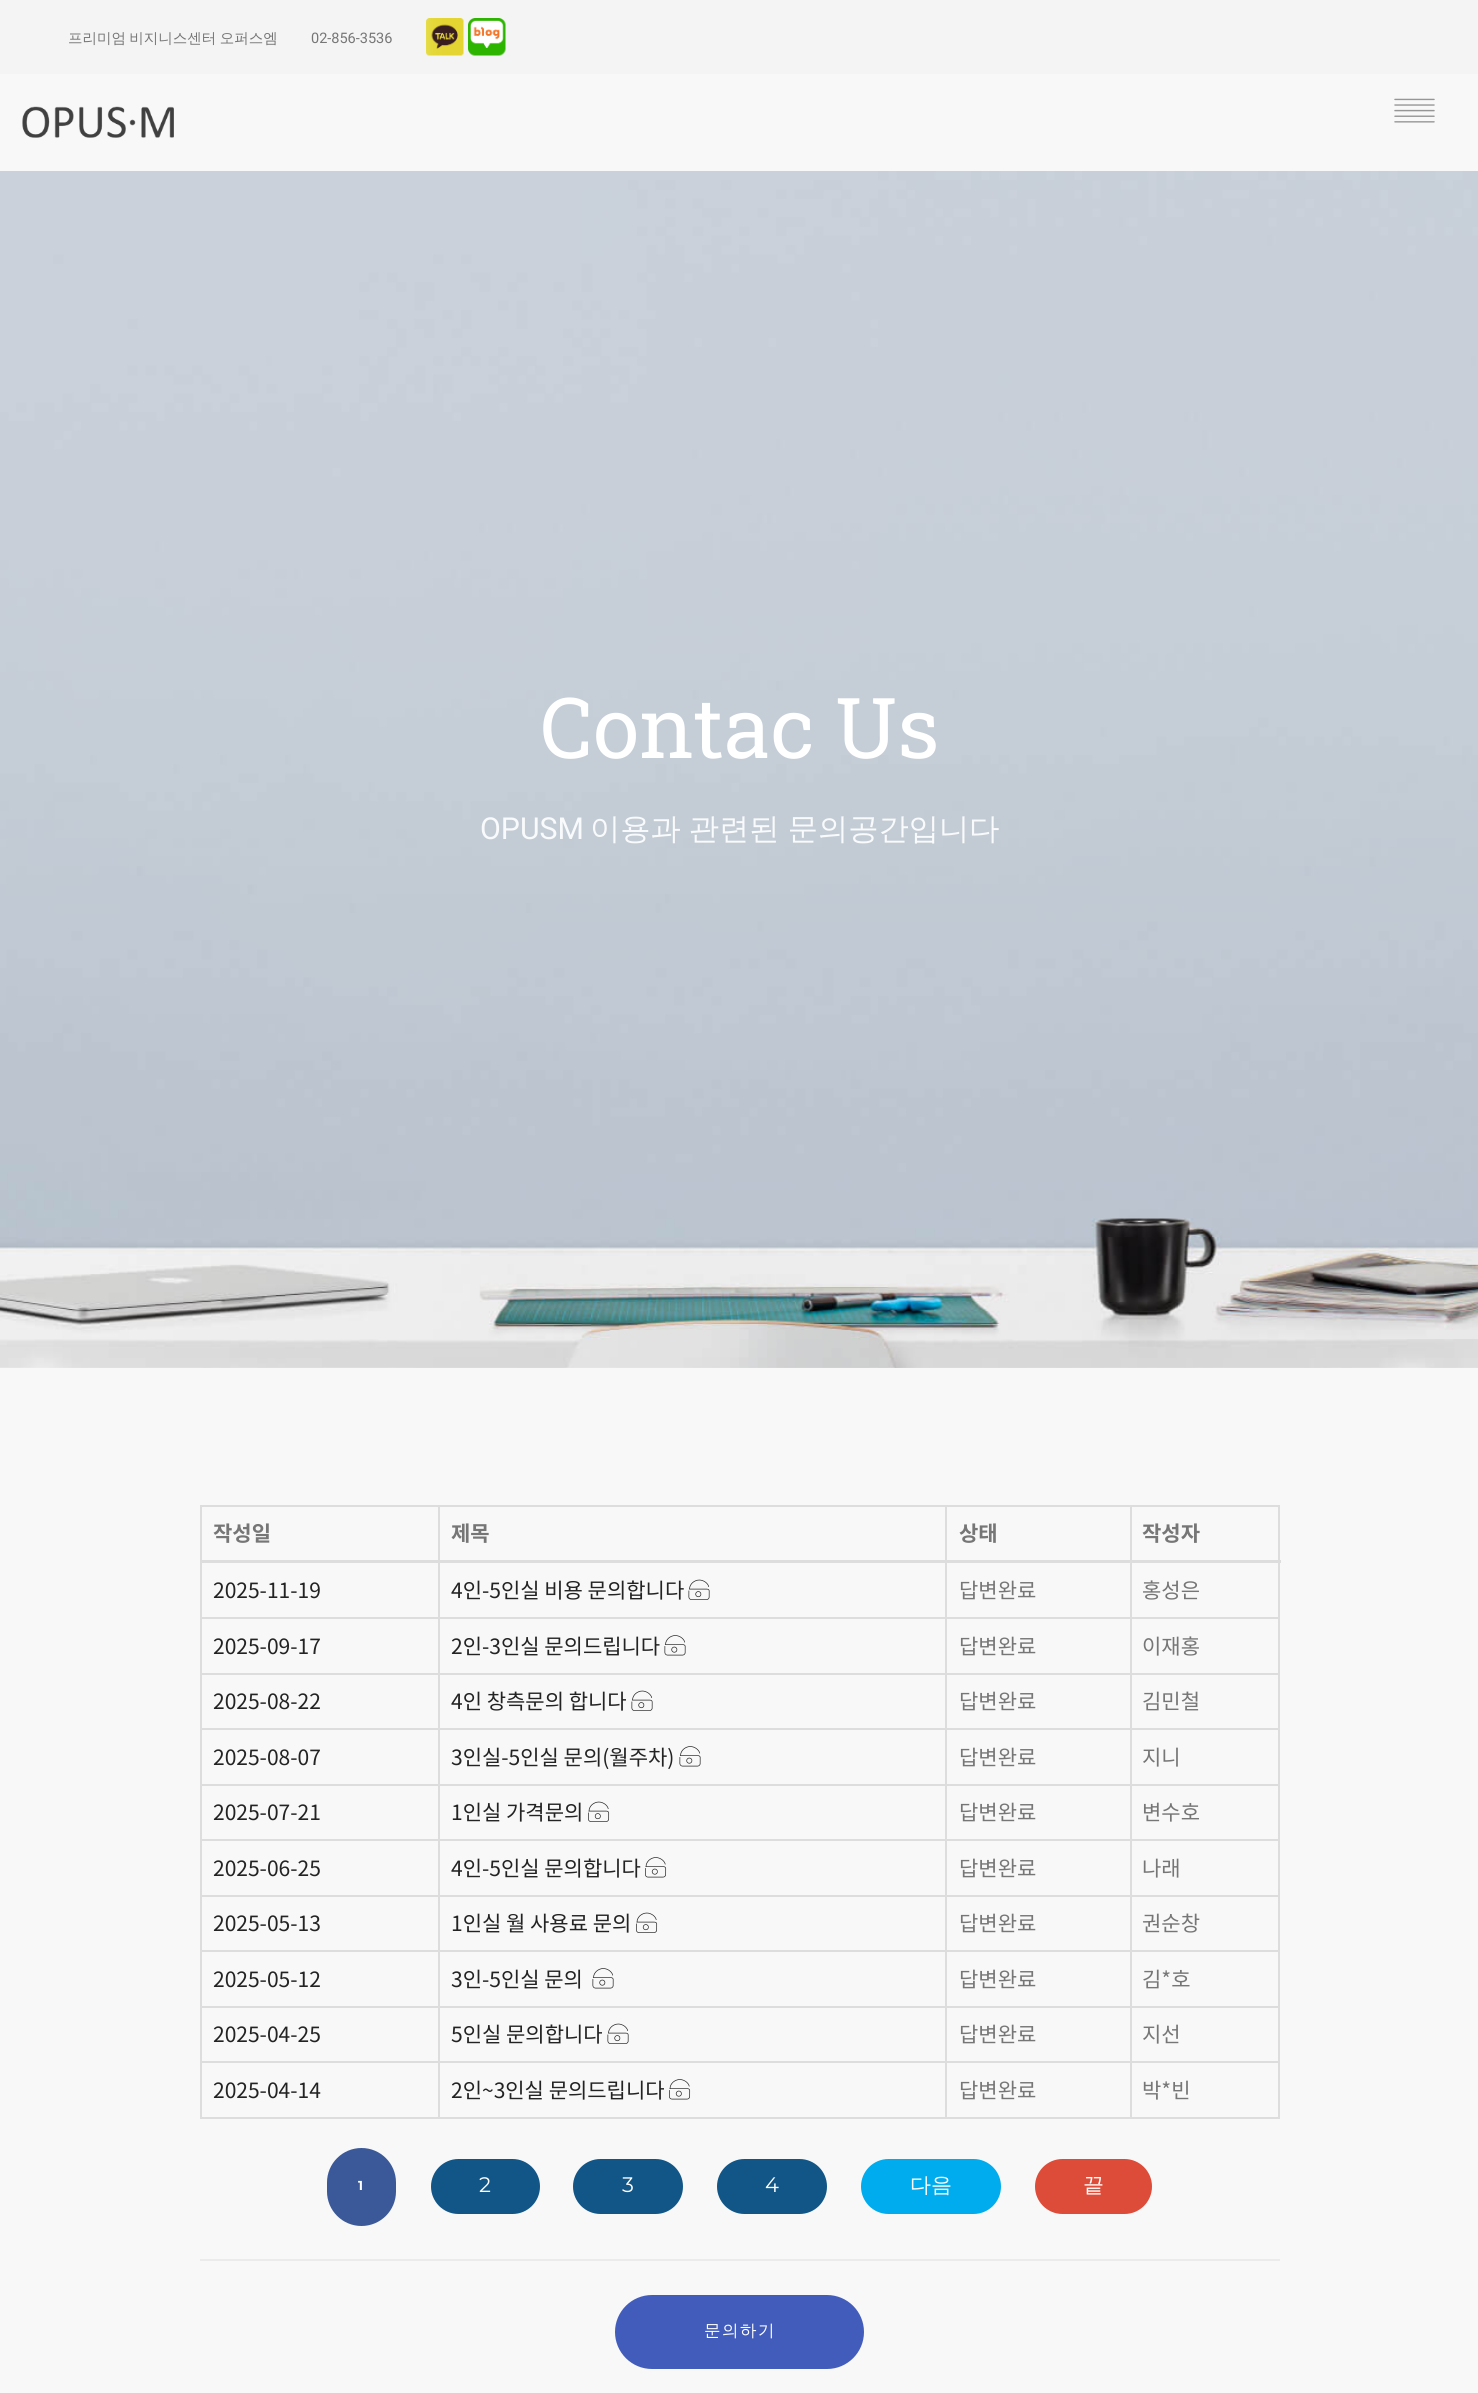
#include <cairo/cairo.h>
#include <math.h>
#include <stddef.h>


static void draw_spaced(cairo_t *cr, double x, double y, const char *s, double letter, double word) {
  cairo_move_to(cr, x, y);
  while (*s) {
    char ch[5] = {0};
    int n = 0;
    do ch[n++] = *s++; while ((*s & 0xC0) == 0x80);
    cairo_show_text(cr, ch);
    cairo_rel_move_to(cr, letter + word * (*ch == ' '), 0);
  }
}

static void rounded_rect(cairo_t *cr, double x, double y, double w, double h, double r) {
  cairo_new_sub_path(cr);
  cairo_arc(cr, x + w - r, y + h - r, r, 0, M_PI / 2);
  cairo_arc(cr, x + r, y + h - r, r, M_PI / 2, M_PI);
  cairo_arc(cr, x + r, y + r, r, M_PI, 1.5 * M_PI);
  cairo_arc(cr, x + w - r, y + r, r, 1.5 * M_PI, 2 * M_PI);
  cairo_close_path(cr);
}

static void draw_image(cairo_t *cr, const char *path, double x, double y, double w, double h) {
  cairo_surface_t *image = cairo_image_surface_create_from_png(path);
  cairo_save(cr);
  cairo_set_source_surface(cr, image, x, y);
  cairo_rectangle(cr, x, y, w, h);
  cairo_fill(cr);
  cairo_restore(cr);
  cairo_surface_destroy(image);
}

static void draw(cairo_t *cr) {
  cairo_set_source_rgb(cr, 248 / 255.0, 248 / 255.0, 248 / 255.0);
  cairo_paint(cr);
  cairo_set_source_rgb(cr, 244 / 255.0, 244 / 255.0, 244 / 255.0);
  cairo_rectangle(cr, 0, 0, 1478, 74);
  cairo_fill(cr);
  draw_image(cr, "images/1.png", 426, 18, 38, 38);
  draw_image(cr, "images/2.png", 468, 18, 38, 38);
  draw_image(cr, "images/3.png", 22, 106, 152, 32);
  draw_image(cr, "images/4.png", 1394, 98, 41, 25);
  draw_image(cr, "images/5.png", 0, 171, 1478, 1197);
  cairo_set_source_rgb(cr, 221 / 255.0, 221 / 255.0, 221 / 255.0);
  cairo_rectangle(cr, 200, 1505, 1080, 2);
  cairo_fill(cr);
  cairo_rectangle(cr, 1278, 1505, 2, 613);
  cairo_fill(cr);
  cairo_rectangle(cr, 200, 2117, 1080, 2);
  cairo_fill(cr);
  cairo_rectangle(cr, 200, 1505, 2, 613);
  cairo_fill(cr);
  cairo_rectangle(cr, 1130, 1617, 150, 2);
  cairo_fill(cr);
  cairo_rectangle(cr, 1130, 1673, 150, 2);
  cairo_fill(cr);
  cairo_rectangle(cr, 1130, 1728, 150, 2);
  cairo_fill(cr);
  cairo_rectangle(cr, 1130, 1784, 150, 2);
  cairo_fill(cr);
  cairo_rectangle(cr, 1130, 1839, 150, 2);
  cairo_fill(cr);
  cairo_rectangle(cr, 1130, 1895, 150, 2);
  cairo_fill(cr);
  cairo_rectangle(cr, 1130, 1950, 150, 2);
  cairo_fill(cr);
  cairo_rectangle(cr, 1130, 2006, 150, 2);
  cairo_fill(cr);
  cairo_rectangle(cr, 1130, 2061, 150, 2);
  cairo_fill(cr);
  cairo_rectangle(cr, 1130, 2061, 2, 57);
  cairo_fill(cr);
  cairo_rectangle(cr, 945, 2061, 186, 2);
  cairo_fill(cr);
  cairo_rectangle(cr, 1130, 2006, 2, 57);
  cairo_fill(cr);
  cairo_rectangle(cr, 945, 2006, 186, 2);
  cairo_fill(cr);
  cairo_rectangle(cr, 1130, 1950, 2, 57);
  cairo_fill(cr);
  cairo_rectangle(cr, 945, 1950, 186, 2);
  cairo_fill(cr);
  cairo_rectangle(cr, 1130, 1895, 2, 57);
  cairo_fill(cr);
  cairo_rectangle(cr, 945, 1895, 186, 2);
  cairo_fill(cr);
  cairo_rectangle(cr, 1130, 1839, 2, 57);
  cairo_fill(cr);
  cairo_rectangle(cr, 945, 1839, 186, 2);
  cairo_fill(cr);
  cairo_rectangle(cr, 1130, 1784, 2, 57);
  cairo_fill(cr);
  cairo_rectangle(cr, 945, 1784, 186, 2);
  cairo_fill(cr);
  cairo_rectangle(cr, 1130, 1728, 2, 57);
  cairo_fill(cr);
  cairo_rectangle(cr, 945, 1728, 186, 2);
  cairo_fill(cr);
  cairo_rectangle(cr, 1130, 1673, 2, 57);
  cairo_fill(cr);
  cairo_rectangle(cr, 945, 1673, 186, 2);
  cairo_fill(cr);
  cairo_rectangle(cr, 1130, 1617, 2, 57);
  cairo_fill(cr);
  cairo_rectangle(cr, 945, 1617, 186, 2);
  cairo_fill(cr);
  cairo_rectangle(cr, 945, 2061, 2, 57);
  cairo_fill(cr);
  cairo_rectangle(cr, 438, 2061, 509, 2);
  cairo_fill(cr);
  cairo_rectangle(cr, 945, 2006, 2, 57);
  cairo_fill(cr);
  cairo_rectangle(cr, 438, 2006, 509, 2);
  cairo_fill(cr);
  cairo_rectangle(cr, 945, 1950, 2, 57);
  cairo_fill(cr);
  cairo_rectangle(cr, 438, 1950, 509, 2);
  cairo_fill(cr);
  cairo_rectangle(cr, 945, 1895, 2, 57);
  cairo_fill(cr);
  cairo_rectangle(cr, 438, 1895, 509, 2);
  cairo_fill(cr);
  cairo_rectangle(cr, 945, 1839, 2, 57);
  cairo_fill(cr);
  cairo_rectangle(cr, 438, 1839, 509, 2);
  cairo_fill(cr);
  cairo_rectangle(cr, 945, 1784, 2, 57);
  cairo_fill(cr);
  cairo_rectangle(cr, 438, 1784, 509, 2);
  cairo_fill(cr);
  cairo_rectangle(cr, 945, 1728, 2, 57);
  cairo_fill(cr);
  cairo_rectangle(cr, 438, 1728, 509, 2);
  cairo_fill(cr);
  cairo_rectangle(cr, 945, 1673, 2, 57);
  cairo_fill(cr);
  cairo_rectangle(cr, 438, 1673, 509, 2);
  cairo_fill(cr);
  cairo_rectangle(cr, 945, 1617, 2, 57);
  cairo_fill(cr);
  cairo_rectangle(cr, 438, 1617, 509, 2);
  cairo_fill(cr);
  cairo_rectangle(cr, 438, 2061, 2, 57);
  cairo_fill(cr);
  cairo_rectangle(cr, 200, 2061, 240, 2);
  cairo_fill(cr);
  cairo_rectangle(cr, 438, 2006, 2, 57);
  cairo_fill(cr);
  cairo_rectangle(cr, 200, 2006, 240, 2);
  cairo_fill(cr);
  cairo_rectangle(cr, 438, 1950, 2, 57);
  cairo_fill(cr);
  cairo_rectangle(cr, 200, 1950, 240, 2);
  cairo_fill(cr);
  cairo_rectangle(cr, 438, 1895, 2, 57);
  cairo_fill(cr);
  cairo_rectangle(cr, 200, 1895, 240, 2);
  cairo_fill(cr);
  cairo_rectangle(cr, 438, 1839, 2, 57);
  cairo_fill(cr);
  cairo_rectangle(cr, 200, 1839, 240, 2);
  cairo_fill(cr);
  cairo_rectangle(cr, 438, 1784, 2, 57);
  cairo_fill(cr);
  cairo_rectangle(cr, 200, 1784, 240, 2);
  cairo_fill(cr);
  cairo_rectangle(cr, 438, 1728, 2, 57);
  cairo_fill(cr);
  cairo_rectangle(cr, 200, 1728, 240, 2);
  cairo_fill(cr);
  cairo_rectangle(cr, 438, 1673, 2, 57);
  cairo_fill(cr);
  cairo_rectangle(cr, 200, 1673, 240, 2);
  cairo_fill(cr);
  cairo_rectangle(cr, 438, 1617, 2, 57);
  cairo_fill(cr);
  cairo_rectangle(cr, 200, 1617, 240, 2);
  cairo_fill(cr);
  cairo_rectangle(cr, 438, 1505, 2, 114);
  cairo_fill(cr);
  cairo_rectangle(cr, 945, 1505, 2, 114);
  cairo_fill(cr);
  cairo_rectangle(cr, 1130, 1505, 2, 114);
  cairo_fill(cr);
  cairo_rectangle(cr, 200, 1560, 1081, 3);
  cairo_fill(cr);
  draw_image(cr, "images/6.png", 688, 1579, 22, 21);
  draw_image(cr, "images/7.png", 664, 1635, 22, 21);
  draw_image(cr, "images/6.png", 631, 1690, 22, 21);
  draw_image(cr, "images/7.png", 679, 1746, 22, 21);
  draw_image(cr, "images/8.png", 588, 1801, 22, 21);
  draw_image(cr, "images/9.png", 645, 1857, 22, 21);
  draw_image(cr, "images/8.png", 636, 1912, 22, 21);
  draw_image(cr, "images/7.png", 592, 1968, 22, 21);
  draw_image(cr, "images/6.png", 607, 2023, 22, 21);
  draw_image(cr, "images/9.png", 669, 2079, 22, 21);
  cairo_set_source_rgb(cr, 59 / 255.0, 89 / 255.0, 152 / 255.0);
  rounded_rect(cr, 327, 2148, 69, 78, 34.5);
  cairo_fill(cr);
  cairo_set_source_rgb(cr, 18 / 255.0, 86 / 255.0, 136 / 255.0);
  rounded_rect(cr, 431, 2159, 109, 55, 27.5);
  cairo_fill(cr);
  rounded_rect(cr, 573, 2159, 110, 55, 27.5);
  cairo_fill(cr);
  rounded_rect(cr, 717, 2159, 110, 55, 27.5);
  cairo_fill(cr);
  cairo_set_source_rgb(cr, 0, 172 / 255.0, 237 / 255.0);
  rounded_rect(cr, 861, 2159, 140, 55, 27.5);
  cairo_fill(cr);
  cairo_set_source_rgb(cr, 221 / 255.0, 75 / 255.0, 57 / 255.0);
  rounded_rect(cr, 1035, 2159, 117, 55, 27.5);
  cairo_fill(cr);
  cairo_set_source_rgb(cr, 235 / 255.0, 235 / 255.0, 235 / 255.0);
  cairo_rectangle(cr, 200, 2259, 1080, 2);
  cairo_fill(cr);
  cairo_set_source_rgb(cr, 66 / 255.0, 92 / 255.0, 187 / 255.0);
  rounded_rect(cr, 616.5, 2296.5, 246, 71, 35.5);
  cairo_fill_preserve(cr);
  cairo_set_line_width(cr, 3);
  cairo_stroke(cr);
  cairo_select_font_face(cr, "WenQuanYi Zen Hei Medium", CAIRO_FONT_SLANT_NORMAL, CAIRO_FONT_WEIGHT_NORMAL);
  cairo_set_font_size(cr, 14.5);
  cairo_set_source_rgb(cr, 118 / 255.0, 118 / 255.0, 118 / 255.0);
  draw_spaced(cr, 68, 43, "프리미엄 비지니스센터 오퍼스엠", 0, -1);
  cairo_select_font_face(cr, "Roboto", CAIRO_FONT_SLANT_NORMAL, CAIRO_FONT_WEIGHT_NORMAL);
  cairo_move_to(cr, 311, 43);
  cairo_show_text(cr, "02-856-3536");
  cairo_select_font_face(cr, "Roboto Slab", CAIRO_FONT_SLANT_NORMAL, CAIRO_FONT_WEIGHT_NORMAL);
  cairo_set_font_size(cr, 84);
  cairo_set_source_rgb(cr, 1, 1, 1);
  cairo_move_to(cr, 540, 758);
  cairo_show_text(cr, "Contac Us");
  cairo_select_font_face(cr, "Roboto", CAIRO_FONT_SLANT_NORMAL, CAIRO_FONT_WEIGHT_NORMAL);
  cairo_set_font_size(cr, 30.25);
  cairo_set_source_rgb(cr, 249 / 255.0, 250 / 255.0, 251 / 255.0);
  cairo_move_to(cr, 480, 839);
  cairo_show_text(cr, "OPUSM");
  cairo_select_font_face(cr, "WenQuanYi Zen Hei Medium", CAIRO_FONT_SLANT_NORMAL, CAIRO_FONT_WEIGHT_NORMAL);
  draw_spaced(cr, 590, 839, "이용과 관련된 문의공간입니다", 0, -1);
  cairo_select_font_face(cr, "Noto Sans KR", CAIRO_FONT_SLANT_NORMAL, CAIRO_FONT_WEIGHT_BOLD);
  cairo_set_font_size(cr, 21);
  cairo_set_source_rgb(cr, 118 / 255.0, 118 / 255.0, 118 / 255.0);
  cairo_move_to(cr, 213, 1541);
  cairo_show_text(cr, "작성일");
  cairo_move_to(cr, 451, 1541);
  cairo_show_text(cr, "제목");
  cairo_move_to(cr, 959, 1541);
  cairo_show_text(cr, "상태");
  cairo_move_to(cr, 1142, 1541);
  cairo_show_text(cr, "작성자");
  cairo_select_font_face(cr, "Noto Sans KR", CAIRO_FONT_SLANT_NORMAL, CAIRO_FONT_WEIGHT_NORMAL);
  cairo_set_source_rgb(cr, 35 / 255.0, 35 / 255.0, 35 / 255.0);
  cairo_move_to(cr, 213, 1598);
  cairo_show_text(cr, "2025-11-19");
  cairo_move_to(cr, 451, 1598);
  cairo_show_text(cr, "4인-5인실 비용 문의합니다");
  cairo_set_source_rgb(cr, 118 / 255.0, 118 / 255.0, 118 / 255.0);
  cairo_move_to(cr, 959, 1598);
  cairo_show_text(cr, "답변완료");
  cairo_move_to(cr, 1142, 1598);
  cairo_show_text(cr, "홍성은");
  cairo_set_source_rgb(cr, 35 / 255.0, 35 / 255.0, 35 / 255.0);
  cairo_move_to(cr, 213, 1654);
  cairo_show_text(cr, "2025-09-17");
  cairo_move_to(cr, 451, 1654);
  cairo_show_text(cr, "2인-3인실 문의드립니다");
  cairo_set_source_rgb(cr, 118 / 255.0, 118 / 255.0, 118 / 255.0);
  cairo_move_to(cr, 959, 1654);
  cairo_show_text(cr, "답변완료");
  cairo_move_to(cr, 1142, 1654);
  cairo_show_text(cr, "이재홍");
  cairo_set_source_rgb(cr, 35 / 255.0, 35 / 255.0, 35 / 255.0);
  cairo_move_to(cr, 213, 1709);
  cairo_show_text(cr, "2025-08-22");
  cairo_move_to(cr, 451, 1709);
  cairo_show_text(cr, "4인 창측문의 합니다");
  cairo_set_source_rgb(cr, 118 / 255.0, 118 / 255.0, 118 / 255.0);
  cairo_move_to(cr, 959, 1709);
  cairo_show_text(cr, "답변완료");
  cairo_move_to(cr, 1142, 1709);
  cairo_show_text(cr, "김민철");
  cairo_set_source_rgb(cr, 35 / 255.0, 35 / 255.0, 35 / 255.0);
  cairo_move_to(cr, 213, 1765);
  cairo_show_text(cr, "2025-08-07");
  cairo_move_to(cr, 451, 1765);
  cairo_show_text(cr, "3인실-5인실 문의(월주차)");
  cairo_set_source_rgb(cr, 118 / 255.0, 118 / 255.0, 118 / 255.0);
  cairo_move_to(cr, 959, 1765);
  cairo_show_text(cr, "답변완료");
  cairo_move_to(cr, 1142, 1765);
  cairo_show_text(cr, "지니");
  cairo_set_source_rgb(cr, 35 / 255.0, 35 / 255.0, 35 / 255.0);
  cairo_move_to(cr, 213, 1820);
  cairo_show_text(cr, "2025-07-21");
  cairo_move_to(cr, 451, 1820);
  cairo_show_text(cr, "1인실 가격문의");
  cairo_set_source_rgb(cr, 118 / 255.0, 118 / 255.0, 118 / 255.0);
  cairo_move_to(cr, 959, 1820);
  cairo_show_text(cr, "답변완료");
  cairo_move_to(cr, 1142, 1820);
  cairo_show_text(cr, "변수호");
  cairo_set_source_rgb(cr, 35 / 255.0, 35 / 255.0, 35 / 255.0);
  cairo_move_to(cr, 213, 1876);
  cairo_show_text(cr, "2025-06-25");
  cairo_move_to(cr, 451, 1876);
  cairo_show_text(cr, "4인-5인실 문의합니다");
  cairo_set_source_rgb(cr, 118 / 255.0, 118 / 255.0, 118 / 255.0);
  cairo_move_to(cr, 959, 1876);
  cairo_show_text(cr, "답변완료");
  cairo_move_to(cr, 1142, 1876);
  cairo_show_text(cr, "나래");
  cairo_set_source_rgb(cr, 35 / 255.0, 35 / 255.0, 35 / 255.0);
  cairo_move_to(cr, 213, 1931);
  cairo_show_text(cr, "2025-05-13");
  cairo_move_to(cr, 451, 1931);
  cairo_show_text(cr, "1인실 월 사용료 문의");
  cairo_set_source_rgb(cr, 118 / 255.0, 118 / 255.0, 118 / 255.0);
  cairo_move_to(cr, 959, 1931);
  cairo_show_text(cr, "답변완료");
  cairo_move_to(cr, 1142, 1931);
  cairo_show_text(cr, "권순창");
  cairo_set_source_rgb(cr, 35 / 255.0, 35 / 255.0, 35 / 255.0);
  cairo_move_to(cr, 213, 1987);
  cairo_show_text(cr, "2025-05-12");
  cairo_move_to(cr, 451, 1987);
  cairo_show_text(cr, "3인-5인실 문의");
  cairo_set_source_rgb(cr, 118 / 255.0, 118 / 255.0, 118 / 255.0);
  cairo_move_to(cr, 959, 1987);
  cairo_show_text(cr, "답변완료");
  cairo_move_to(cr, 1142, 1987);
  cairo_show_text(cr, "김*호");
  cairo_set_source_rgb(cr, 35 / 255.0, 35 / 255.0, 35 / 255.0);
  cairo_move_to(cr, 213, 2042);
  cairo_show_text(cr, "2025-04-25");
  cairo_move_to(cr, 451, 2042);
  cairo_show_text(cr, "5인실 문의합니다");
  cairo_set_source_rgb(cr, 118 / 255.0, 118 / 255.0, 118 / 255.0);
  cairo_move_to(cr, 959, 2042);
  cairo_show_text(cr, "답변완료");
  cairo_move_to(cr, 1142, 2042);
  cairo_show_text(cr, "지선");
  cairo_set_source_rgb(cr, 35 / 255.0, 35 / 255.0, 35 / 255.0);
  cairo_move_to(cr, 213, 2098);
  cairo_show_text(cr, "2025-04-14");
  cairo_move_to(cr, 451, 2098);
  cairo_show_text(cr, "2인~3인실 문의드립니다");
  cairo_set_source_rgb(cr, 118 / 255.0, 118 / 255.0, 118 / 255.0);
  cairo_move_to(cr, 959, 2098);
  cairo_show_text(cr, "답변완료");
  cairo_move_to(cr, 1142, 2098);
  cairo_show_text(cr, "박*빈");
  cairo_select_font_face(cr, "Montserrat SemiBold", CAIRO_FONT_SLANT_NORMAL, CAIRO_FONT_WEIGHT_NORMAL);
  cairo_set_font_size(cr, 13);
  cairo_set_source_rgb(cr, 1, 1, 1);
  draw_spaced(cr, 358, 2190, "1", 1.5, 0);
  cairo_select_font_face(cr, "Montserrat", CAIRO_FONT_SLANT_NORMAL, CAIRO_FONT_WEIGHT_NORMAL);
  cairo_set_font_size(cr, 21);
  cairo_move_to(cr, 479, 2192);
  cairo_show_text(cr, "2");
  cairo_move_to(cr, 622, 2192);
  cairo_show_text(cr, "3");
  cairo_move_to(cr, 765, 2192);
  cairo_show_text(cr, "4");
  cairo_select_font_face(cr, "WenQuanYi Zen Hei Medium", CAIRO_FONT_SLANT_NORMAL, CAIRO_FONT_WEIGHT_NORMAL);
  cairo_move_to(cr, 910, 2192);
  cairo_show_text(cr, "다음");
  cairo_move_to(cr, 1083, 2192);
  cairo_show_text(cr, "끝");
  cairo_set_font_size(cr, 16.5);
  draw_spaced(cr, 704, 2336, "문의하기", 1.5, 0);
}

int main(void) {
  cairo_surface_t *surface = cairo_image_surface_create(CAIRO_FORMAT_RGB24, 1478, 2393);
  cairo_t *cr = cairo_create(surface);
  cairo_font_options_t *options = cairo_font_options_create();
  cairo_font_options_set_hint_metrics(options, CAIRO_HINT_METRICS_OFF);
  cairo_font_options_set_hint_style(options, CAIRO_HINT_STYLE_NONE);
  cairo_set_font_options(cr, options);
  cairo_set_miter_limit(cr, 4);
  draw(cr);
  cairo_surface_write_to_png(surface, "out.png");
  cairo_font_options_destroy(options);
  cairo_destroy(cr);
  cairo_surface_destroy(surface);
  return 0;
}
